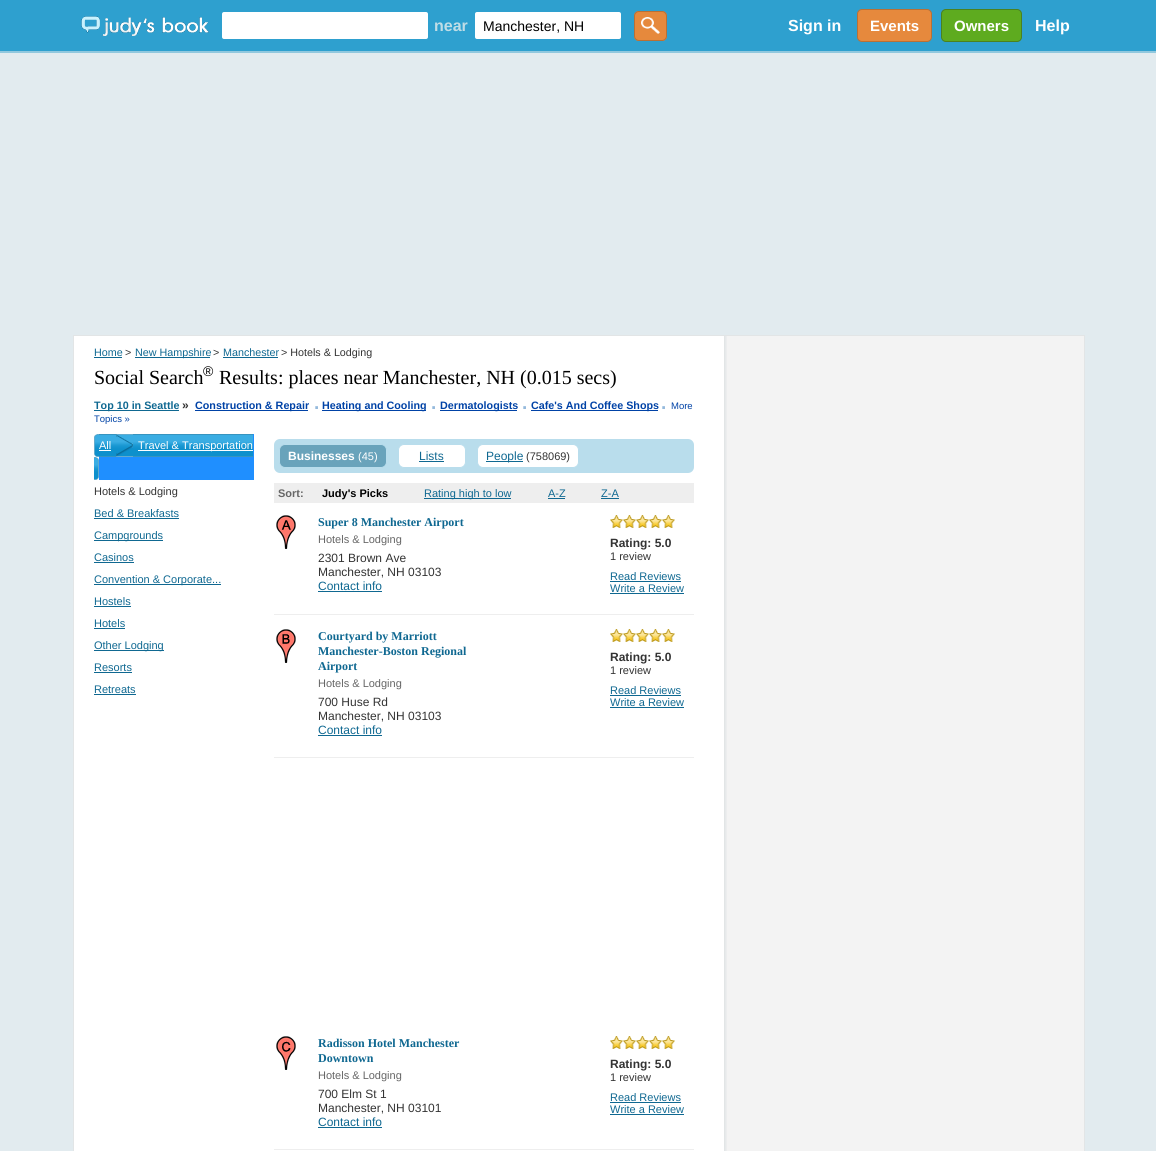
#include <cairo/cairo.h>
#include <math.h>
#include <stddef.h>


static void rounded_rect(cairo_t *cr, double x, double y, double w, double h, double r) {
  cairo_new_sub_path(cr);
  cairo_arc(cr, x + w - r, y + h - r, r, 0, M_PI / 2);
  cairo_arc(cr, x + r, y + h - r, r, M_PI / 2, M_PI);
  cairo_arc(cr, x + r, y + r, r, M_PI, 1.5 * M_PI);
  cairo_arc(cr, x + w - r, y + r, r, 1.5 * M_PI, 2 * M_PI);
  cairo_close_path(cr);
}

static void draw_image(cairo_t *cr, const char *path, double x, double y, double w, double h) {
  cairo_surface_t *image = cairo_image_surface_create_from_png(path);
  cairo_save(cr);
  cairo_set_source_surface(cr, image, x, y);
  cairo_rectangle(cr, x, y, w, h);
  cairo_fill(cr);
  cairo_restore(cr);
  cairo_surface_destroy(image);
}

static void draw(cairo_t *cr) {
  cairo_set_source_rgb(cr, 226 / 255.0, 235 / 255.0, 239 / 255.0);
  cairo_paint(cr);
  cairo_set_source_rgb(cr, 46 / 255.0, 160 / 255.0, 207 / 255.0);
  cairo_rectangle(cr, 0, 0, 1156, 51);
  cairo_fill(cr);
  cairo_set_source_rgb(cr, 145 / 255.0, 200 / 255.0, 222 / 255.0);
  cairo_rectangle(cr, 0, 51, 1156, 2);
  cairo_fill(cr);
  draw_image(cr, "images/1.png", 81, 16, 128, 20);
  cairo_set_source_rgb(cr, 1, 1, 1);
  rounded_rect(cr, 222, 12, 206, 27, 2);
  cairo_fill(cr);
  rounded_rect(cr, 475, 12, 146, 27, 2);
  cairo_fill(cr);
  cairo_set_source_rgb(cr, 230 / 255.0, 137 / 255.0, 60 / 255.0);
  rounded_rect(cr, 634, 11, 33, 30, 5);
  cairo_fill(cr);
  draw_image(cr, "images/2.png", 641, 17, 19, 17);
  rounded_rect(cr, 634.5, 11.5, 32, 29, 4.5);
  cairo_set_source_rgb(cr, 185 / 255.0, 112 / 255.0, 53 / 255.0);
  cairo_set_line_width(cr, 1);
  cairo_stroke(cr);
  cairo_set_source_rgb(cr, 230 / 255.0, 137 / 255.0, 61 / 255.0);
  rounded_rect(cr, 857.5, 9.5, 74, 32, 4.5);
  cairo_fill_preserve(cr);
  cairo_set_source_rgb(cr, 185 / 255.0, 112 / 255.0, 53 / 255.0);
  cairo_stroke(cr);
  cairo_set_source_rgb(cr, 94 / 255.0, 171 / 255.0, 31 / 255.0);
  rounded_rect(cr, 941.5, 9.5, 80, 32, 4.5);
  cairo_fill_preserve(cr);
  cairo_set_source_rgb(cr, 75 / 255.0, 129 / 255.0, 31 / 255.0);
  cairo_stroke(cr);
  cairo_set_source_rgb(cr, 243 / 255.0, 243 / 255.0, 243 / 255.0);
  cairo_rectangle(cr, 727, 336, 357, 815);
  cairo_fill(cr);
  draw_image(cr, "images/3.png", 74, 336, 653, 815);
  cairo_rectangle(cr, 73.5, 335.5, 1011, 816);
  cairo_set_source_rgb(cr, 226 / 255.0, 229 / 255.0, 230 / 255.0);
  cairo_stroke(cr);
  cairo_set_source_rgb(cr, 15 / 255.0, 104 / 255.0, 145 / 255.0);
  cairo_rectangle(cr, 94, 357, 28, 1);
  cairo_fill(cr);
  cairo_rectangle(cr, 135, 357, 75, 1);
  cairo_fill(cr);
  cairo_rectangle(cr, 223, 357, 55, 1);
  cairo_fill(cr);
  cairo_rectangle(cr, 94, 410, 85, 1);
  cairo_fill(cr);
  cairo_set_source_rgb(cr, 0, 66 / 255.0, 166 / 255.0);
  cairo_rectangle(cr, 195, 410, 113, 1);
  cairo_fill(cr);
  cairo_rectangle(cr, 322, 410, 104, 1);
  cairo_fill(cr);
  cairo_rectangle(cr, 440, 410, 77, 1);
  cairo_fill(cr);
  cairo_rectangle(cr, 531, 410, 127, 1);
  cairo_fill(cr);
  cairo_set_source_rgb(cr, 31 / 255.0, 143 / 255.0, 1);
  cairo_rectangle(cr, 99, 434, 155, 46);
  cairo_fill(cr);
  draw_image(cr, "images/4.png", 94, 434, 5, 23);
  draw_image(cr, "images/5.png", 99, 434, 154, 23);
  cairo_set_source_rgb(cr, 1, 1, 1);
  cairo_rectangle(cr, 99, 450, 12, 1);
  cairo_fill(cr);
  draw_image(cr, "images/6.png", 116, 434, 17, 23);
  cairo_rectangle(cr, 138, 450, 115, 1);
  cairo_fill(cr);
  draw_image(cr, "images/7.png", 94, 457, 5, 23);
  cairo_set_source_rgb(cr, 15 / 255.0, 104 / 255.0, 145 / 255.0);
  cairo_rectangle(cr, 94, 518, 85, 1);
  cairo_fill(cr);
  cairo_rectangle(cr, 94, 540, 69, 1);
  cairo_fill(cr);
  cairo_rectangle(cr, 94, 562, 40, 1);
  cairo_fill(cr);
  cairo_rectangle(cr, 94, 584, 127, 1);
  cairo_fill(cr);
  cairo_rectangle(cr, 94, 606, 37, 1);
  cairo_fill(cr);
  cairo_rectangle(cr, 94, 628, 31, 1);
  cairo_fill(cr);
  cairo_rectangle(cr, 94, 650, 70, 1);
  cairo_fill(cr);
  cairo_rectangle(cr, 94, 672, 38, 1);
  cairo_fill(cr);
  cairo_rectangle(cr, 94, 694, 42, 1);
  cairo_fill(cr);
  cairo_set_source_rgb(cr, 185 / 255.0, 221 / 255.0, 236 / 255.0);
  rounded_rect(cr, 274, 439, 420, 34, 6);
  cairo_fill(cr);
  cairo_set_source_rgb(cr, 105 / 255.0, 163 / 255.0, 187 / 255.0);
  rounded_rect(cr, 279.5, 444.5, 107, 23, 5.5);
  cairo_fill_preserve(cr);
  cairo_set_source_rgb(cr, 185 / 255.0, 221 / 255.0, 236 / 255.0);
  cairo_stroke(cr);
  cairo_set_source_rgb(cr, 1, 1, 1);
  rounded_rect(cr, 398.5, 444.5, 67, 23, 5.5);
  cairo_fill_preserve(cr);
  cairo_set_source_rgb(cr, 185 / 255.0, 221 / 255.0, 236 / 255.0);
  cairo_stroke(cr);
  cairo_set_source_rgb(cr, 15 / 255.0, 104 / 255.0, 145 / 255.0);
  cairo_rectangle(cr, 419, 461, 25, 1);
  cairo_fill(cr);
  cairo_set_source_rgb(cr, 1, 1, 1);
  rounded_rect(cr, 477.5, 444.5, 101, 23, 5.5);
  cairo_fill_preserve(cr);
  cairo_set_source_rgb(cr, 185 / 255.0, 221 / 255.0, 236 / 255.0);
  cairo_stroke(cr);
  cairo_set_source_rgb(cr, 15 / 255.0, 104 / 255.0, 145 / 255.0);
  cairo_rectangle(cr, 486, 461, 37, 1);
  cairo_fill(cr);
  cairo_set_source_rgb(cr, 238 / 255.0, 238 / 255.0, 238 / 255.0);
  cairo_rectangle(cr, 274, 483, 420, 20);
  cairo_fill(cr);
  cairo_set_source_rgb(cr, 15 / 255.0, 104 / 255.0, 145 / 255.0);
  cairo_rectangle(cr, 424, 498, 87, 1);
  cairo_fill(cr);
  cairo_rectangle(cr, 548, 498, 17, 1);
  cairo_fill(cr);
  cairo_rectangle(cr, 601, 498, 18, 1);
  cairo_fill(cr);
  cairo_set_source_rgb(cr, 238 / 255.0, 238 / 255.0, 238 / 255.0);
  cairo_rectangle(cr, 274, 614, 420, 1);
  cairo_fill(cr);
  draw_image(cr, "images/8.png", 276, 515, 20, 34);
  cairo_set_source_rgb(cr, 15 / 255.0, 104 / 255.0, 145 / 255.0);
  cairo_rectangle(cr, 318, 591, 64, 1);
  cairo_fill(cr);
  draw_image(cr, "images/9.png", 610, 515, 13, 13);
  draw_image(cr, "images/9.png", 623, 515, 13, 13);
  draw_image(cr, "images/9.png", 636, 515, 13, 13);
  draw_image(cr, "images/9.png", 649, 515, 13, 13);
  draw_image(cr, "images/9.png", 662, 515, 13, 13);
  cairo_rectangle(cr, 610, 581, 71, 1);
  cairo_fill(cr);
  cairo_rectangle(cr, 610, 593, 74, 1);
  cairo_fill(cr);
  cairo_set_source_rgb(cr, 238 / 255.0, 238 / 255.0, 238 / 255.0);
  cairo_rectangle(cr, 274, 757, 420, 1);
  cairo_fill(cr);
  draw_image(cr, "images/10.png", 276, 629, 20, 34);
  cairo_set_source_rgb(cr, 15 / 255.0, 104 / 255.0, 145 / 255.0);
  cairo_rectangle(cr, 318, 735, 64, 1);
  cairo_fill(cr);
  draw_image(cr, "images/9.png", 610, 629, 13, 13);
  draw_image(cr, "images/9.png", 623, 629, 13, 13);
  draw_image(cr, "images/9.png", 636, 629, 13, 13);
  draw_image(cr, "images/9.png", 649, 629, 13, 13);
  draw_image(cr, "images/9.png", 662, 629, 13, 13);
  cairo_rectangle(cr, 610, 695, 71, 1);
  cairo_fill(cr);
  cairo_rectangle(cr, 610, 707, 74, 1);
  cairo_fill(cr);
  cairo_set_source_rgb(cr, 238 / 255.0, 238 / 255.0, 238 / 255.0);
  cairo_rectangle(cr, 274, 1149, 420, 1);
  cairo_fill(cr);
  draw_image(cr, "images/11.png", 276, 1036, 20, 34);
  cairo_set_source_rgb(cr, 15 / 255.0, 104 / 255.0, 145 / 255.0);
  cairo_rectangle(cr, 318, 1127, 64, 1);
  cairo_fill(cr);
  draw_image(cr, "images/9.png", 610, 1036, 13, 13);
  draw_image(cr, "images/9.png", 623, 1036, 13, 13);
  draw_image(cr, "images/9.png", 636, 1036, 13, 13);
  draw_image(cr, "images/9.png", 649, 1036, 13, 13);
  draw_image(cr, "images/9.png", 662, 1036, 13, 13);
  cairo_rectangle(cr, 610, 1102, 71, 1);
  cairo_fill(cr);
  cairo_rectangle(cr, 610, 1114, 74, 1);
  cairo_fill(cr);
  cairo_select_font_face(cr, "Liberation Sans", CAIRO_FONT_SLANT_NORMAL, CAIRO_FONT_WEIGHT_BOLD);
  cairo_set_font_size(cr, 16);
  cairo_set_source_rgb(cr, 192 / 255.0, 221 / 255.0, 230 / 255.0);
  cairo_move_to(cr, 434, 31);
  cairo_show_text(cr, "near");
  cairo_select_font_face(cr, "Liberation Sans", CAIRO_FONT_SLANT_NORMAL, CAIRO_FONT_WEIGHT_NORMAL);
  cairo_set_font_size(cr, 14);
  cairo_set_source_rgb(cr, 0, 0, 0);
  cairo_move_to(cr, 483, 31);
  cairo_show_text(cr, "Manchester, NH");
  cairo_select_font_face(cr, "Liberation Sans", CAIRO_FONT_SLANT_NORMAL, CAIRO_FONT_WEIGHT_BOLD);
  cairo_set_font_size(cr, 16);
  cairo_set_source_rgb(cr, 1, 1, 1);
  cairo_move_to(cr, 788, 31);
  cairo_show_text(cr, "Sign in");
  cairo_set_font_size(cr, 15);
  cairo_move_to(cr, 870, 31);
  cairo_show_text(cr, "Events");
  cairo_move_to(cr, 954, 31);
  cairo_show_text(cr, "Owners");
  cairo_set_font_size(cr, 16);
  cairo_move_to(cr, 1035, 31);
  cairo_show_text(cr, "Help");
  cairo_select_font_face(cr, "Liberation Sans", CAIRO_FONT_SLANT_NORMAL, CAIRO_FONT_WEIGHT_NORMAL);
  cairo_set_font_size(cr, 10.75);
  cairo_set_source_rgb(cr, 15 / 255.0, 104 / 255.0, 145 / 255.0);
  cairo_move_to(cr, 94, 356);
  cairo_show_text(cr, "Home");
  cairo_set_source_rgb(cr, 51 / 255.0, 51 / 255.0, 51 / 255.0);
  cairo_move_to(cr, 125, 356);
  cairo_show_text(cr, ">");
  cairo_set_source_rgb(cr, 15 / 255.0, 104 / 255.0, 145 / 255.0);
  cairo_move_to(cr, 135, 356);
  cairo_show_text(cr, "New Hampshire");
  cairo_set_source_rgb(cr, 51 / 255.0, 51 / 255.0, 51 / 255.0);
  cairo_move_to(cr, 213, 356);
  cairo_show_text(cr, ">");
  cairo_set_source_rgb(cr, 15 / 255.0, 104 / 255.0, 145 / 255.0);
  cairo_move_to(cr, 223, 356);
  cairo_show_text(cr, "Manchester");
  cairo_set_source_rgb(cr, 51 / 255.0, 51 / 255.0, 51 / 255.0);
  cairo_move_to(cr, 281, 356);
  cairo_show_text(cr, "> Hotels & Lodging");
  cairo_select_font_face(cr, "Liberation Serif", CAIRO_FONT_SLANT_NORMAL, CAIRO_FONT_WEIGHT_NORMAL);
  cairo_set_font_size(cr, 20);
  cairo_set_source_rgb(cr, 0, 0, 0);
  cairo_move_to(cr, 94, 384);
  cairo_show_text(cr, "Social Search");
  cairo_select_font_face(cr, "Liberation Sans", CAIRO_FONT_SLANT_NORMAL, CAIRO_FONT_WEIGHT_NORMAL);
  cairo_set_font_size(cr, 14);
  cairo_move_to(cr, 203, 376);
  cairo_show_text(cr, "®");
  cairo_select_font_face(cr, "Liberation Serif", CAIRO_FONT_SLANT_NORMAL, CAIRO_FONT_WEIGHT_NORMAL);
  cairo_set_font_size(cr, 20);
  cairo_move_to(cr, 219, 384);
  cairo_show_text(cr, "Results: places near Manchester, NH (0.015 secs)");
  cairo_select_font_face(cr, "Liberation Sans", CAIRO_FONT_SLANT_NORMAL, CAIRO_FONT_WEIGHT_BOLD);
  cairo_set_font_size(cr, 10.75);
  cairo_set_source_rgb(cr, 15 / 255.0, 104 / 255.0, 145 / 255.0);
  cairo_move_to(cr, 94, 409);
  cairo_show_text(cr, "Top 10 in Seattle");
  cairo_set_font_size(cr, 12);
  cairo_set_source_rgb(cr, 51 / 255.0, 51 / 255.0, 51 / 255.0);
  cairo_move_to(cr, 182, 409);
  cairo_show_text(cr, "»");
  cairo_set_font_size(cr, 10.75);
  cairo_set_source_rgb(cr, 0, 66 / 255.0, 166 / 255.0);
  cairo_move_to(cr, 195, 409);
  cairo_show_text(cr, "Construction & Repair");
  cairo_set_font_size(cr, 19);
  cairo_set_source_rgb(cr, 148 / 255.0, 185 / 255.0, 220 / 255.0);
  cairo_move_to(cr, 314, 409);
  cairo_show_text(cr, ".");
  cairo_set_font_size(cr, 10.75);
  cairo_set_source_rgb(cr, 0, 66 / 255.0, 166 / 255.0);
  cairo_move_to(cr, 322, 409);
  cairo_show_text(cr, "Heating and Cooling");
  cairo_set_font_size(cr, 19);
  cairo_set_source_rgb(cr, 148 / 255.0, 185 / 255.0, 220 / 255.0);
  cairo_move_to(cr, 431, 409);
  cairo_show_text(cr, ".");
  cairo_set_font_size(cr, 10.75);
  cairo_set_source_rgb(cr, 0, 66 / 255.0, 166 / 255.0);
  cairo_move_to(cr, 440, 409);
  cairo_show_text(cr, "Dermatologists");
  cairo_set_font_size(cr, 19);
  cairo_set_source_rgb(cr, 148 / 255.0, 185 / 255.0, 220 / 255.0);
  cairo_move_to(cr, 522, 409);
  cairo_show_text(cr, ".");
  cairo_set_font_size(cr, 10.75);
  cairo_set_source_rgb(cr, 0, 66 / 255.0, 166 / 255.0);
  cairo_move_to(cr, 531, 409);
  cairo_show_text(cr, "Cafe's And Coffee Shops");
  cairo_set_font_size(cr, 19);
  cairo_set_source_rgb(cr, 148 / 255.0, 185 / 255.0, 220 / 255.0);
  cairo_move_to(cr, 661, 409);
  cairo_show_text(cr, ".");
  cairo_select_font_face(cr, "Liberation Sans", CAIRO_FONT_SLANT_NORMAL, CAIRO_FONT_WEIGHT_NORMAL);
  cairo_set_font_size(cr, 9.5);
  cairo_set_source_rgb(cr, 0, 66 / 255.0, 166 / 255.0);
  cairo_move_to(cr, 671, 409);
  cairo_show_text(cr, "More");
  cairo_move_to(cr, 94, 422);
  cairo_show_text(cr, "Topics »");
  cairo_set_font_size(cr, 11);
  cairo_set_source_rgb(cr, 1, 1, 1);
  cairo_move_to(cr, 99, 449);
  cairo_show_text(cr, "All");
  cairo_move_to(cr, 138, 449);
  cairo_show_text(cr, "Travel & Transportation");
  cairo_set_source_rgb(cr, 51 / 255.0, 51 / 255.0, 51 / 255.0);
  cairo_move_to(cr, 94, 495);
  cairo_show_text(cr, "Hotels & Lodging");
  cairo_set_source_rgb(cr, 15 / 255.0, 104 / 255.0, 145 / 255.0);
  cairo_move_to(cr, 94, 517);
  cairo_show_text(cr, "Bed & Breakfasts");
  cairo_move_to(cr, 94, 539);
  cairo_show_text(cr, "Campgrounds");
  cairo_move_to(cr, 94, 561);
  cairo_show_text(cr, "Casinos");
  cairo_move_to(cr, 94, 583);
  cairo_show_text(cr, "Convention & Corporate...");
  cairo_move_to(cr, 94, 605);
  cairo_show_text(cr, "Hostels");
  cairo_move_to(cr, 94, 627);
  cairo_show_text(cr, "Hotels");
  cairo_move_to(cr, 94, 649);
  cairo_show_text(cr, "Other Lodging");
  cairo_move_to(cr, 94, 671);
  cairo_show_text(cr, "Resorts");
  cairo_move_to(cr, 94, 693);
  cairo_show_text(cr, "Retreats");
  cairo_select_font_face(cr, "Liberation Sans", CAIRO_FONT_SLANT_NORMAL, CAIRO_FONT_WEIGHT_BOLD);
  cairo_set_font_size(cr, 12);
  cairo_set_source_rgb(cr, 1, 1, 1);
  cairo_move_to(cr, 288, 460);
  cairo_show_text(cr, "Businesses");
  cairo_select_font_face(cr, "Liberation Sans", CAIRO_FONT_SLANT_NORMAL, CAIRO_FONT_WEIGHT_NORMAL);
  cairo_set_font_size(cr, 11);
  cairo_move_to(cr, 358, 460);
  cairo_show_text(cr, "(45)");
  cairo_set_font_size(cr, 12);
  cairo_set_source_rgb(cr, 15 / 255.0, 104 / 255.0, 145 / 255.0);
  cairo_move_to(cr, 419, 460);
  cairo_show_text(cr, "Lists");
  cairo_move_to(cr, 486, 460);
  cairo_show_text(cr, "People");
  cairo_set_font_size(cr, 11);
  cairo_set_source_rgb(cr, 51 / 255.0, 51 / 255.0, 51 / 255.0);
  cairo_move_to(cr, 526, 460);
  cairo_show_text(cr, "(758069)");
  cairo_select_font_face(cr, "Liberation Sans", CAIRO_FONT_SLANT_NORMAL, CAIRO_FONT_WEIGHT_BOLD);
  cairo_set_source_rgb(cr, 102 / 255.0, 102 / 255.0, 102 / 255.0);
  cairo_move_to(cr, 278, 497);
  cairo_show_text(cr, "Sort:");
  cairo_set_source_rgb(cr, 0, 0, 0);
  cairo_move_to(cr, 322, 497);
  cairo_show_text(cr, "Judy's Picks");
  cairo_select_font_face(cr, "Liberation Sans", CAIRO_FONT_SLANT_NORMAL, CAIRO_FONT_WEIGHT_NORMAL);
  cairo_set_source_rgb(cr, 15 / 255.0, 104 / 255.0, 145 / 255.0);
  cairo_move_to(cr, 424, 497);
  cairo_show_text(cr, "Rating high to low");
  cairo_move_to(cr, 548, 497);
  cairo_show_text(cr, "A-Z");
  cairo_move_to(cr, 601, 497);
  cairo_show_text(cr, "Z-A");
  cairo_select_font_face(cr, "Liberation Serif", CAIRO_FONT_SLANT_NORMAL, CAIRO_FONT_WEIGHT_BOLD);
  cairo_set_font_size(cr, 12);
  cairo_move_to(cr, 318, 526);
  cairo_show_text(cr, "Super 8 Manchester Airport");
  cairo_select_font_face(cr, "Liberation Sans", CAIRO_FONT_SLANT_NORMAL, CAIRO_FONT_WEIGHT_NORMAL);
  cairo_set_font_size(cr, 11);
  cairo_set_source_rgb(cr, 102 / 255.0, 102 / 255.0, 102 / 255.0);
  cairo_move_to(cr, 318, 543);
  cairo_show_text(cr, "Hotels & Lodging");
  cairo_set_font_size(cr, 12);
  cairo_set_source_rgb(cr, 51 / 255.0, 51 / 255.0, 51 / 255.0);
  cairo_move_to(cr, 318, 562);
  cairo_show_text(cr, "2301 Brown Ave");
  cairo_move_to(cr, 318, 576);
  cairo_show_text(cr, "Manchester, NH 03103");
  cairo_set_source_rgb(cr, 15 / 255.0, 104 / 255.0, 145 / 255.0);
  cairo_move_to(cr, 318, 590);
  cairo_show_text(cr, "Contact info");
  cairo_select_font_face(cr, "Liberation Sans", CAIRO_FONT_SLANT_NORMAL, CAIRO_FONT_WEIGHT_BOLD);
  cairo_set_source_rgb(cr, 51 / 255.0, 51 / 255.0, 51 / 255.0);
  cairo_move_to(cr, 610, 547);
  cairo_show_text(cr, "Rating: 5.0");
  cairo_select_font_face(cr, "Liberation Sans", CAIRO_FONT_SLANT_NORMAL, CAIRO_FONT_WEIGHT_NORMAL);
  cairo_set_font_size(cr, 11);
  cairo_move_to(cr, 610, 560);
  cairo_show_text(cr, "1 review");
  cairo_set_source_rgb(cr, 15 / 255.0, 104 / 255.0, 145 / 255.0);
  cairo_move_to(cr, 610, 580);
  cairo_show_text(cr, "Read Reviews");
  cairo_move_to(cr, 610, 592);
  cairo_show_text(cr, "Write a Review");
  cairo_select_font_face(cr, "Liberation Serif", CAIRO_FONT_SLANT_NORMAL, CAIRO_FONT_WEIGHT_BOLD);
  cairo_set_font_size(cr, 12);
  cairo_move_to(cr, 318, 640);
  cairo_show_text(cr, "Courtyard by Marriott");
  cairo_move_to(cr, 318, 655);
  cairo_show_text(cr, "Manchester-Boston Regional");
  cairo_move_to(cr, 318, 670);
  cairo_show_text(cr, "Airport");
  cairo_select_font_face(cr, "Liberation Sans", CAIRO_FONT_SLANT_NORMAL, CAIRO_FONT_WEIGHT_NORMAL);
  cairo_set_font_size(cr, 11);
  cairo_set_source_rgb(cr, 102 / 255.0, 102 / 255.0, 102 / 255.0);
  cairo_move_to(cr, 318, 687);
  cairo_show_text(cr, "Hotels & Lodging");
  cairo_set_font_size(cr, 12);
  cairo_set_source_rgb(cr, 51 / 255.0, 51 / 255.0, 51 / 255.0);
  cairo_move_to(cr, 318, 706);
  cairo_show_text(cr, "700 Huse Rd");
  cairo_move_to(cr, 318, 720);
  cairo_show_text(cr, "Manchester, NH 03103");
  cairo_set_source_rgb(cr, 15 / 255.0, 104 / 255.0, 145 / 255.0);
  cairo_move_to(cr, 318, 734);
  cairo_show_text(cr, "Contact info");
  cairo_select_font_face(cr, "Liberation Sans", CAIRO_FONT_SLANT_NORMAL, CAIRO_FONT_WEIGHT_BOLD);
  cairo_set_source_rgb(cr, 51 / 255.0, 51 / 255.0, 51 / 255.0);
  cairo_move_to(cr, 610, 661);
  cairo_show_text(cr, "Rating: 5.0");
  cairo_select_font_face(cr, "Liberation Sans", CAIRO_FONT_SLANT_NORMAL, CAIRO_FONT_WEIGHT_NORMAL);
  cairo_set_font_size(cr, 11);
  cairo_move_to(cr, 610, 674);
  cairo_show_text(cr, "1 review");
  cairo_set_source_rgb(cr, 15 / 255.0, 104 / 255.0, 145 / 255.0);
  cairo_move_to(cr, 610, 694);
  cairo_show_text(cr, "Read Reviews");
  cairo_move_to(cr, 610, 706);
  cairo_show_text(cr, "Write a Review");
  cairo_select_font_face(cr, "Liberation Serif", CAIRO_FONT_SLANT_NORMAL, CAIRO_FONT_WEIGHT_BOLD);
  cairo_set_font_size(cr, 12);
  cairo_move_to(cr, 318, 1047);
  cairo_show_text(cr, "Radisson Hotel Manchester");
  cairo_move_to(cr, 318, 1062);
  cairo_show_text(cr, "Downtown");
  cairo_select_font_face(cr, "Liberation Sans", CAIRO_FONT_SLANT_NORMAL, CAIRO_FONT_WEIGHT_NORMAL);
  cairo_set_font_size(cr, 11);
  cairo_set_source_rgb(cr, 102 / 255.0, 102 / 255.0, 102 / 255.0);
  cairo_move_to(cr, 318, 1079);
  cairo_show_text(cr, "Hotels & Lodging");
  cairo_set_font_size(cr, 12);
  cairo_set_source_rgb(cr, 51 / 255.0, 51 / 255.0, 51 / 255.0);
  cairo_move_to(cr, 318, 1098);
  cairo_show_text(cr, "700 Elm St 1");
  cairo_move_to(cr, 318, 1112);
  cairo_show_text(cr, "Manchester, NH 03101");
  cairo_set_source_rgb(cr, 15 / 255.0, 104 / 255.0, 145 / 255.0);
  cairo_move_to(cr, 318, 1126);
  cairo_show_text(cr, "Contact info");
  cairo_select_font_face(cr, "Liberation Sans", CAIRO_FONT_SLANT_NORMAL, CAIRO_FONT_WEIGHT_BOLD);
  cairo_set_source_rgb(cr, 51 / 255.0, 51 / 255.0, 51 / 255.0);
  cairo_move_to(cr, 610, 1068);
  cairo_show_text(cr, "Rating: 5.0");
  cairo_select_font_face(cr, "Liberation Sans", CAIRO_FONT_SLANT_NORMAL, CAIRO_FONT_WEIGHT_NORMAL);
  cairo_set_font_size(cr, 11);
  cairo_move_to(cr, 610, 1081);
  cairo_show_text(cr, "1 review");
  cairo_set_source_rgb(cr, 15 / 255.0, 104 / 255.0, 145 / 255.0);
  cairo_move_to(cr, 610, 1101);
  cairo_show_text(cr, "Read Reviews");
  cairo_move_to(cr, 610, 1113);
  cairo_show_text(cr, "Write a Review");
}

int main(void) {
  cairo_surface_t *surface = cairo_image_surface_create(CAIRO_FORMAT_RGB24, 1156, 1151);
  cairo_t *cr = cairo_create(surface);
  cairo_font_options_t *options = cairo_font_options_create();
  cairo_font_options_set_hint_metrics(options, CAIRO_HINT_METRICS_OFF);
  cairo_font_options_set_hint_style(options, CAIRO_HINT_STYLE_NONE);
  cairo_set_font_options(cr, options);
  cairo_set_miter_limit(cr, 4);
  draw(cr);
  cairo_surface_write_to_png(surface, "out.png");
  cairo_font_options_destroy(options);
  cairo_destroy(cr);
  cairo_surface_destroy(surface);
  return 0;
}
